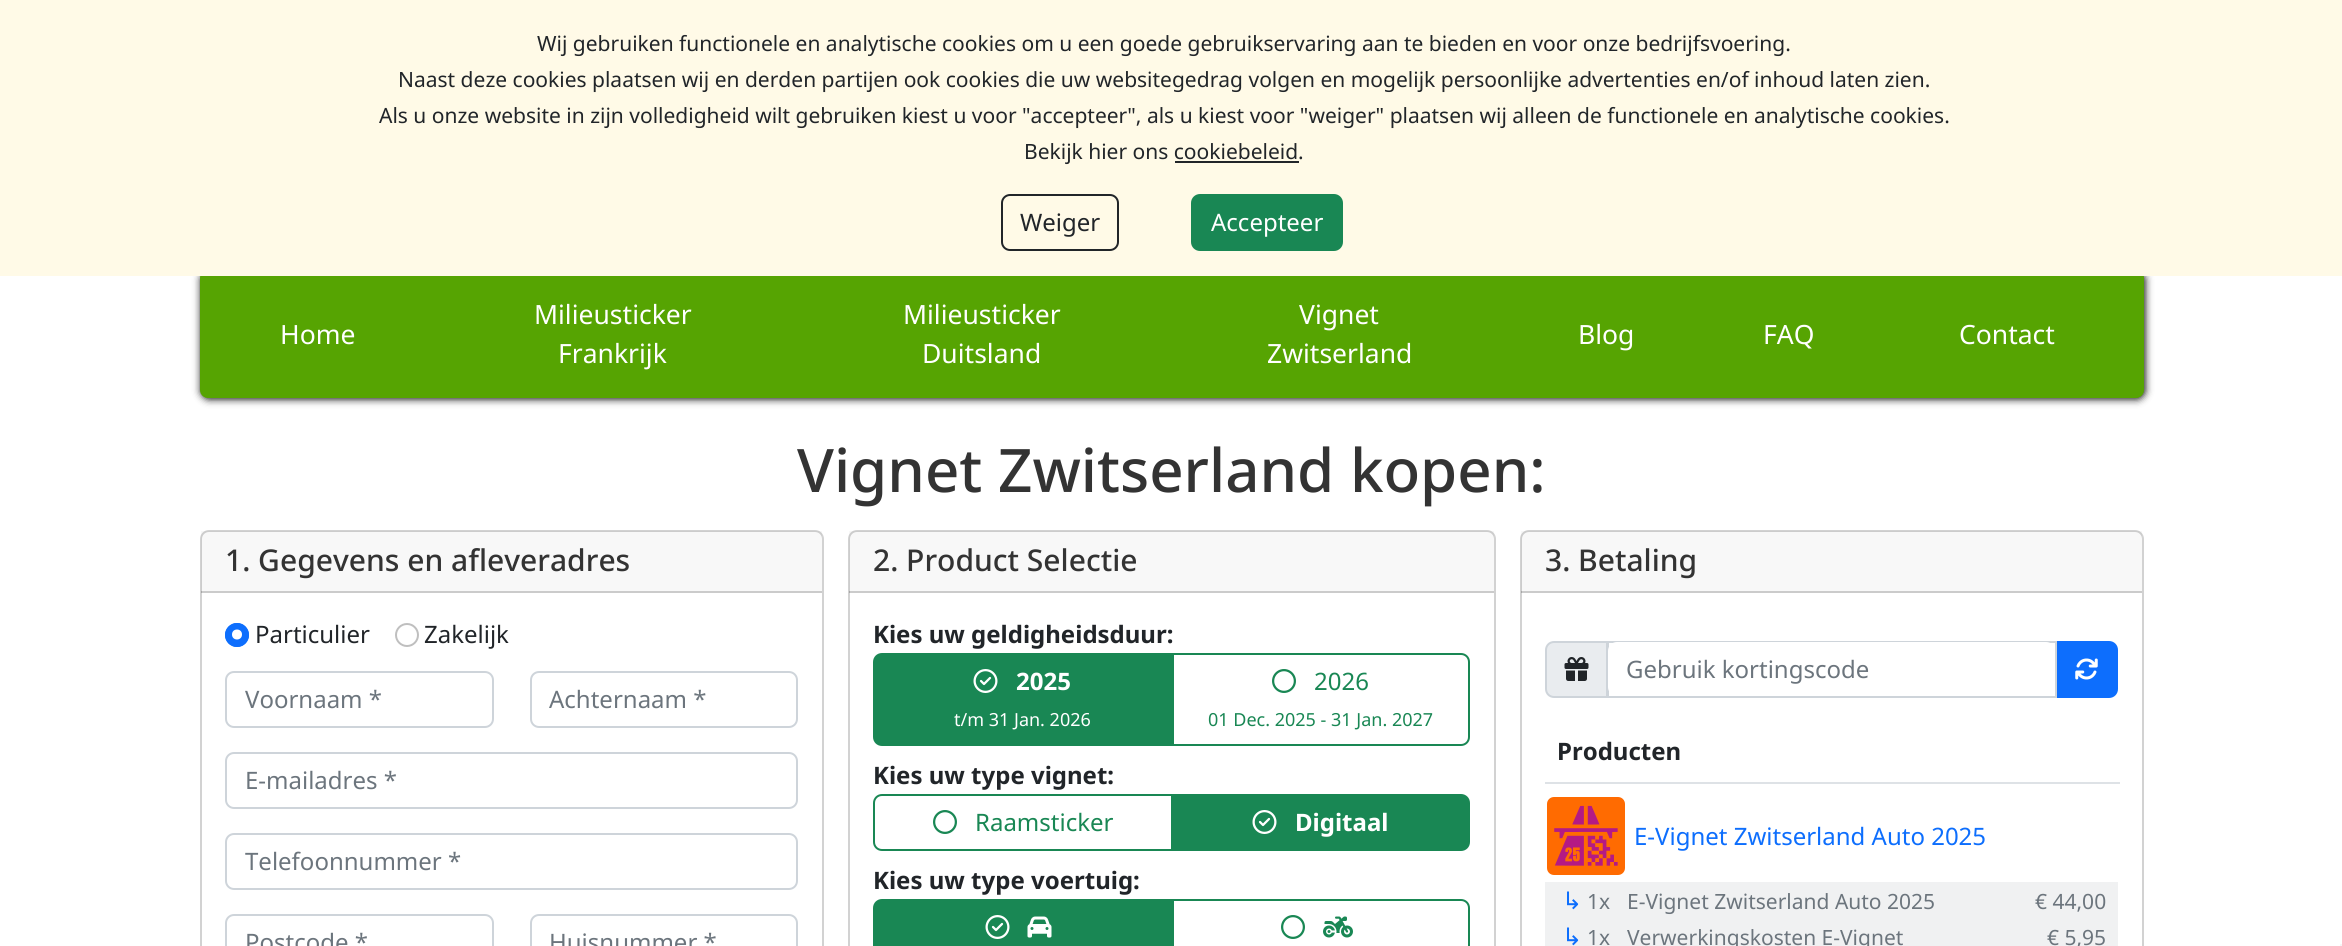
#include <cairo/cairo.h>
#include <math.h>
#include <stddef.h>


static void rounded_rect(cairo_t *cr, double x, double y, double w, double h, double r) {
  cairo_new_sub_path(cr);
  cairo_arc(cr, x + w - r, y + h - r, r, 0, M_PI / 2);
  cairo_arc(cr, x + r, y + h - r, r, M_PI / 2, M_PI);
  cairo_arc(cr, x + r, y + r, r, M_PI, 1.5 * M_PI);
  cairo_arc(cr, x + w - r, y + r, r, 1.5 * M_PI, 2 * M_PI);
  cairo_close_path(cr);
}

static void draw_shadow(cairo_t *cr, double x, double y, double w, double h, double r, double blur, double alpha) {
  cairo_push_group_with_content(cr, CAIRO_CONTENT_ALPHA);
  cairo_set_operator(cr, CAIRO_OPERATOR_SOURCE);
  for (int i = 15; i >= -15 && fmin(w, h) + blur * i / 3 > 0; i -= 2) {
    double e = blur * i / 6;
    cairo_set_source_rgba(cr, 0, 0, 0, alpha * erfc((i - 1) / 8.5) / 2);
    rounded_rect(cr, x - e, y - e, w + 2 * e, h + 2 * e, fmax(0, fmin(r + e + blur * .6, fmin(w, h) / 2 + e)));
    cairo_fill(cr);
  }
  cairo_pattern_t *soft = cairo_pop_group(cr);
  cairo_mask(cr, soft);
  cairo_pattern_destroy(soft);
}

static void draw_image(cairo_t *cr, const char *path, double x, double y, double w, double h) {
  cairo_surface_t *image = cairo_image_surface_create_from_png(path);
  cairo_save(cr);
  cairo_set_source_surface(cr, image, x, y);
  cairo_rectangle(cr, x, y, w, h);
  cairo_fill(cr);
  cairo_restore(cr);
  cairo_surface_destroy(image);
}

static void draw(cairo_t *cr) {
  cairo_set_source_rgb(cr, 1, 1, 1);
  cairo_paint(cr);
  cairo_set_source_rgb(cr, 0, 0, 0);
  draw_shadow(cr, 201, 272, 1944, 127, 8, 4, 1);
  cairo_set_source_rgb(cr, 86 / 255.0, 164 / 255.0, 2 / 255.0);
  rounded_rect(cr, 200, 270, 1944, 128, 8);
  cairo_fill(cr);
  cairo_set_source_rgb(cr, 1, 250 / 255.0, 231 / 255.0);
  cairo_rectangle(cr, 0, 0, 2342, 276);
  cairo_fill(cr);
  cairo_set_source_rgb(cr, 33 / 255.0, 37 / 255.0, 41 / 255.0);
  cairo_rectangle(cr, 1175, 161, 124, 2);
  cairo_fill(cr);
  rounded_rect(cr, 1002, 195, 116, 55, 8);
  cairo_stroke(cr);
  cairo_set_source_rgb(cr, 25 / 255.0, 135 / 255.0, 84 / 255.0);
  rounded_rect(cr, 1192, 195, 150, 55, 8);
  cairo_fill_preserve(cr);
  cairo_stroke(cr);
  rounded_rect(cr, 201, 531, 622, 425, 8);
  cairo_set_source_rgb(cr, 210 / 255.0, 210 / 255.0, 210 / 255.0);
  cairo_stroke(cr);
  cairo_set_source_rgba(cr, 0, 0, 0, 0.03);
  cairo_rectangle(cr, 201, 531, 621, 62);
  cairo_fill(cr);
  cairo_set_source_rgba(cr, 0, 0, 0, 0.18);
  cairo_rectangle(cr, 201, 591, 621, 2);
  cairo_fill(cr);
  cairo_set_source_rgb(cr, 13 / 255.0, 110 / 255.0, 253 / 255.0);
  cairo_arc(cr, 237, 635, 12, 0, 2 * M_PI);
  cairo_fill(cr);
  cairo_set_source_rgb(cr, 1, 1, 1);
  cairo_arc(cr, 237, 634.5, 5, 0, 2 * M_PI);
  cairo_fill(cr);
  cairo_arc(cr, 237, 635, 11, 0, 2 * M_PI);
  cairo_set_source_rgb(cr, 13 / 255.0, 110 / 255.0, 253 / 255.0);
  cairo_stroke(cr);
  cairo_arc(cr, 407, 635, 11, 0, 2 * M_PI);
  cairo_set_source_rgb(cr, 191 / 255.0, 191 / 255.0, 191 / 255.0);
  cairo_stroke(cr);
  rounded_rect(cr, 226, 672, 267, 55, 8);
  cairo_set_source_rgb(cr, 206 / 255.0, 212 / 255.0, 218 / 255.0);
  cairo_stroke(cr);
  rounded_rect(cr, 531, 672, 266, 55, 8);
  cairo_stroke(cr);
  rounded_rect(cr, 226, 753, 571, 55, 8);
  cairo_stroke(cr);
  rounded_rect(cr, 226, 834, 571, 55, 8);
  cairo_stroke(cr);
  rounded_rect(cr, 226, 915, 267, 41, 8);
  cairo_stroke(cr);
  rounded_rect(cr, 531, 915, 266, 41, 8);
  cairo_stroke(cr);
  rounded_rect(cr, 849, 531, 646, 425, 8);
  cairo_set_source_rgb(cr, 210 / 255.0, 210 / 255.0, 210 / 255.0);
  cairo_stroke(cr);
  cairo_set_source_rgba(cr, 0, 0, 0, 0.03);
  cairo_rectangle(cr, 849, 531, 645, 62);
  cairo_fill(cr);
  cairo_set_source_rgba(cr, 0, 0, 0, 0.18);
  cairo_rectangle(cr, 849, 591, 645, 2);
  cairo_fill(cr);
  cairo_new_path(cr);
  cairo_move_to(cr, 1173, 654);
  cairo_line_to(cr, 1461, 654);
  cairo_curve_to(cr, 1465.5, 654, 1469, 657.5, 1469, 662);
  cairo_line_to(cr, 1469, 737);
  cairo_curve_to(cr, 1469, 741.5, 1465.5, 745, 1461, 745);
  cairo_line_to(cr, 1173, 745);
  cairo_close_path(cr);
  cairo_set_source_rgb(cr, 25 / 255.0, 135 / 255.0, 84 / 255.0);
  cairo_stroke(cr);
  cairo_new_path(cr);
  cairo_move_to(cr, 882, 654);
  cairo_line_to(cr, 1172, 654);
  cairo_line_to(cr, 1172, 745);
  cairo_line_to(cr, 882, 745);
  cairo_curve_to(cr, 877.5, 745, 874, 741.5, 874, 737);
  cairo_line_to(cr, 874, 662);
  cairo_curve_to(cr, 874, 657.5, 877.5, 654, 882, 654);
  cairo_close_path(cr);
  cairo_fill_preserve(cr);
  cairo_stroke(cr);
  draw_image(cr, "images/1.png", 973, 669, 25, 24);
  draw_image(cr, "images/2.png", 1272, 669, 24, 24);
  cairo_new_path(cr);
  cairo_move_to(cr, 882, 795);
  cairo_line_to(cr, 1172, 795);
  cairo_line_to(cr, 1172, 850);
  cairo_line_to(cr, 882, 850);
  cairo_curve_to(cr, 877.5, 850, 874, 846.5, 874, 842);
  cairo_line_to(cr, 874, 803);
  cairo_curve_to(cr, 874, 798.5, 877.5, 795, 882, 795);
  cairo_close_path(cr);
  cairo_stroke(cr);
  draw_image(cr, "images/2.png", 933, 810, 24, 24);
  cairo_new_path(cr);
  cairo_move_to(cr, 1173, 795);
  cairo_line_to(cr, 1461, 795);
  cairo_curve_to(cr, 1465.5, 795, 1469, 798.5, 1469, 803);
  cairo_line_to(cr, 1469, 842);
  cairo_curve_to(cr, 1469, 846.5, 1465.5, 850, 1461, 850);
  cairo_line_to(cr, 1173, 850);
  cairo_close_path(cr);
  cairo_fill_preserve(cr);
  cairo_stroke(cr);
  draw_image(cr, "images/1.png", 1252, 810, 25, 24);
  cairo_new_path(cr);
  cairo_move_to(cr, 1173, 900);
  cairo_line_to(cr, 1461, 900);
  cairo_curve_to(cr, 1465.5, 900, 1469, 903.5, 1469, 908);
  cairo_line_to(cr, 1469, 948);
  cairo_curve_to(cr, 1469, 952.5, 1465.5, 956, 1461, 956);
  cairo_line_to(cr, 1173, 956);
  cairo_close_path(cr);
  cairo_stroke(cr);
  cairo_new_path(cr);
  cairo_move_to(cr, 882, 900);
  cairo_line_to(cr, 1172, 900);
  cairo_line_to(cr, 1172, 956);
  cairo_line_to(cr, 882, 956);
  cairo_curve_to(cr, 877.5, 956, 874, 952.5, 874, 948);
  cairo_line_to(cr, 874, 908);
  cairo_curve_to(cr, 874, 903.5, 877.5, 900, 882, 900);
  cairo_close_path(cr);
  cairo_fill_preserve(cr);
  cairo_stroke(cr);
  draw_image(cr, "images/1.png", 985, 915, 25, 24);
  draw_image(cr, "images/3.png", 1027, 916, 25, 22);
  draw_image(cr, "images/2.png", 1281, 915, 24, 24);
  draw_image(cr, "images/4.png", 1323, 916, 30, 22);
  rounded_rect(cr, 1521, 531, 622, 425, 8);
  cairo_set_source_rgb(cr, 210 / 255.0, 210 / 255.0, 210 / 255.0);
  cairo_stroke(cr);
  cairo_set_source_rgba(cr, 0, 0, 0, 0.03);
  cairo_rectangle(cr, 1521, 531, 621, 62);
  cairo_fill(cr);
  cairo_set_source_rgba(cr, 0, 0, 0, 0.18);
  cairo_rectangle(cr, 1521, 591, 621, 2);
  cairo_fill(cr);
  cairo_set_source_rgb(cr, 233 / 255.0, 236 / 255.0, 239 / 255.0);
  cairo_new_path(cr);
  cairo_move_to(cr, 1554, 642);
  cairo_line_to(cr, 1607, 642);
  cairo_line_to(cr, 1607, 697);
  cairo_line_to(cr, 1554, 697);
  cairo_curve_to(cr, 1549.5, 697, 1546, 693.5, 1546, 689);
  cairo_line_to(cr, 1546, 650);
  cairo_curve_to(cr, 1546, 645.5, 1549.5, 642, 1554, 642);
  cairo_close_path(cr);
  cairo_fill_preserve(cr);
  cairo_set_source_rgb(cr, 206 / 255.0, 212 / 255.0, 218 / 255.0);
  cairo_stroke(cr);
  draw_image(cr, "images/5.png", 1564, 657, 25, 24);
  cairo_set_source_rgb(cr, 13 / 255.0, 110 / 255.0, 253 / 255.0);
  cairo_new_path(cr);
  cairo_move_to(cr, 2056, 642);
  cairo_line_to(cr, 2109, 642);
  cairo_curve_to(cr, 2113.5, 642, 2117, 645.5, 2117, 650);
  cairo_line_to(cr, 2117, 689);
  cairo_curve_to(cr, 2117, 693.5, 2113.5, 697, 2109, 697);
  cairo_line_to(cr, 2056, 697);
  cairo_close_path(cr);
  cairo_fill_preserve(cr);
  cairo_stroke(cr);
  cairo_rectangle(cr, 1608, 642, 448, 55);
  cairo_set_source_rgb(cr, 206 / 255.0, 212 / 255.0, 218 / 255.0);
  cairo_stroke(cr);
  cairo_set_source_rgb(cr, 1, 1, 1);
  rounded_rect(cr, 1608, 642, 447, 54, 9);
  cairo_fill(cr);
  draw_image(cr, "images/6.png", 2075, 658, 23, 22);
  cairo_set_source_rgb(cr, 222 / 255.0, 226 / 255.0, 230 / 255.0);
  cairo_rectangle(cr, 1545, 782, 575, 2);
  cairo_fill(cr);
  draw_image(cr, "images/7.png", 1547, 797, 78, 78);
  cairo_set_source_rgb(cr, 240 / 255.0, 241 / 255.0, 242 / 255.0);
  cairo_rectangle(cr, 1545, 882, 573, 36);
  cairo_fill(cr);
  cairo_rectangle(cr, 1545, 918, 573, 28);
  cairo_fill(cr);
  cairo_set_source_rgb(cr, 245 / 255.0, 245 / 255.0, 245 / 255.0);
  cairo_rectangle(cr, 2340, 944, 2, 2);
  cairo_fill(cr);
  cairo_select_font_face(cr, "Noto Sans", CAIRO_FONT_SLANT_NORMAL, CAIRO_FONT_WEIGHT_NORMAL);
  cairo_set_font_size(cr, 21);
  cairo_set_source_rgb(cr, 33 / 255.0, 37 / 255.0, 41 / 255.0);
  cairo_move_to(cr, 537, 51);
  cairo_show_text(cr, "Wij gebruiken functionele en analytische cookies om u een goede gebruikservaring aan te bieden en voor onze bedrijfsvoering.");
  cairo_move_to(cr, 398, 87);
  cairo_show_text(cr, "Naast deze cookies plaatsen wij en derden partijen ook cookies die uw websitegedrag volgen en mogelijk persoonlijke advertenties en/of inhoud laten zien.");
  cairo_move_to(cr, 379, 123);
  cairo_show_text(cr, "Als u onze website in zijn volledigheid wilt gebruiken kiest u voor \"accepteer\", als u kiest voor \"weiger\" plaatsen wij alleen de functionele en analytische cookies.");
  cairo_move_to(cr, 1024, 159);
  cairo_show_text(cr, "Bekijk hier ons cookiebeleid.");
  cairo_set_font_size(cr, 24);
  cairo_move_to(cr, 1020, 231);
  cairo_show_text(cr, "Weiger");
  cairo_set_source_rgb(cr, 1, 1, 1);
  cairo_move_to(cr, 1211, 231);
  cairo_show_text(cr, "Accepteer");
  cairo_set_font_size(cr, 26.5);
  cairo_move_to(cr, 280, 344);
  cairo_show_text(cr, "Home");
  cairo_move_to(cr, 534, 324);
  cairo_show_text(cr, "Milieusticker");
  cairo_move_to(cr, 558, 363);
  cairo_show_text(cr, "Frankrijk");
  cairo_move_to(cr, 903, 324);
  cairo_show_text(cr, "Milieusticker");
  cairo_move_to(cr, 922, 363);
  cairo_show_text(cr, "Duitsland");
  cairo_move_to(cr, 1299, 324);
  cairo_show_text(cr, "Vignet");
  cairo_move_to(cr, 1267, 363);
  cairo_show_text(cr, "Zwitserland");
  cairo_move_to(cr, 1578, 344);
  cairo_show_text(cr, "Blog");
  cairo_move_to(cr, 1763, 344);
  cairo_show_text(cr, "FAQ");
  cairo_move_to(cr, 1959, 344);
  cairo_show_text(cr, "Contact");
  cairo_select_font_face(cr, "Noto Sans Medium", CAIRO_FONT_SLANT_NORMAL, CAIRO_FONT_WEIGHT_NORMAL);
  cairo_set_font_size(cr, 60);
  cairo_set_source_rgb(cr, 51 / 255.0, 51 / 255.0, 51 / 255.0);
  cairo_move_to(cr, 797, 492);
  cairo_show_text(cr, "Vignet Zwitserland kopen:");
  cairo_set_font_size(cr, 30);
  cairo_move_to(cr, 225, 571);
  cairo_show_text(cr, "1. Gegevens en afleveradres");
  cairo_select_font_face(cr, "Noto Sans", CAIRO_FONT_SLANT_NORMAL, CAIRO_FONT_WEIGHT_NORMAL);
  cairo_set_font_size(cr, 24);
  cairo_set_source_rgb(cr, 33 / 255.0, 37 / 255.0, 41 / 255.0);
  cairo_move_to(cr, 255, 643);
  cairo_show_text(cr, "Particulier");
  cairo_move_to(cr, 424, 643);
  cairo_show_text(cr, "Zakelijk");
  cairo_set_source_rgb(cr, 108 / 255.0, 117 / 255.0, 125 / 255.0);
  cairo_move_to(cr, 245, 708);
  cairo_show_text(cr, "Voornaam *");
  cairo_move_to(cr, 549, 708);
  cairo_show_text(cr, "Achternaam *");
  cairo_move_to(cr, 245, 789);
  cairo_show_text(cr, "E-mailadres *");
  cairo_move_to(cr, 245, 870);
  cairo_show_text(cr, "Telefoonnummer *");
  cairo_move_to(cr, 245, 951);
  cairo_show_text(cr, "Postcode *");
  cairo_move_to(cr, 549, 951);
  cairo_show_text(cr, "Huisnummer *");
  cairo_select_font_face(cr, "Noto Sans Medium", CAIRO_FONT_SLANT_NORMAL, CAIRO_FONT_WEIGHT_NORMAL);
  cairo_set_font_size(cr, 30);
  cairo_set_source_rgb(cr, 51 / 255.0, 51 / 255.0, 51 / 255.0);
  cairo_move_to(cr, 873, 571);
  cairo_show_text(cr, "2. Product Selectie");
  cairo_select_font_face(cr, "Noto Sans", CAIRO_FONT_SLANT_NORMAL, CAIRO_FONT_WEIGHT_BOLD);
  cairo_set_font_size(cr, 24);
  cairo_set_source_rgb(cr, 33 / 255.0, 37 / 255.0, 41 / 255.0);
  cairo_move_to(cr, 873, 643);
  cairo_show_text(cr, "Kies uw geldigheidsduur:");
  cairo_set_source_rgb(cr, 1, 1, 1);
  cairo_move_to(cr, 1016, 690);
  cairo_show_text(cr, "2025");
  cairo_select_font_face(cr, "Noto Sans", CAIRO_FONT_SLANT_NORMAL, CAIRO_FONT_WEIGHT_NORMAL);
  cairo_set_font_size(cr, 18);
  cairo_move_to(cr, 954, 726);
  cairo_show_text(cr, "t/m 31 Jan. 2026");
  cairo_set_font_size(cr, 24);
  cairo_set_source_rgb(cr, 25 / 255.0, 135 / 255.0, 84 / 255.0);
  cairo_move_to(cr, 1314, 690);
  cairo_show_text(cr, "2026");
  cairo_set_font_size(cr, 18);
  cairo_move_to(cr, 1208, 726);
  cairo_show_text(cr, "01 Dec. 2025 - 31 Jan. 2027");
  cairo_select_font_face(cr, "Noto Sans", CAIRO_FONT_SLANT_NORMAL, CAIRO_FONT_WEIGHT_BOLD);
  cairo_set_font_size(cr, 24);
  cairo_set_source_rgb(cr, 33 / 255.0, 37 / 255.0, 41 / 255.0);
  cairo_move_to(cr, 873, 784);
  cairo_show_text(cr, "Kies uw type vignet:");
  cairo_select_font_face(cr, "Noto Sans", CAIRO_FONT_SLANT_NORMAL, CAIRO_FONT_WEIGHT_NORMAL);
  cairo_set_source_rgb(cr, 25 / 255.0, 135 / 255.0, 84 / 255.0);
  cairo_move_to(cr, 975, 831);
  cairo_show_text(cr, "Raamsticker");
  cairo_select_font_face(cr, "Noto Sans", CAIRO_FONT_SLANT_NORMAL, CAIRO_FONT_WEIGHT_BOLD);
  cairo_set_source_rgb(cr, 1, 1, 1);
  cairo_move_to(cr, 1295, 831);
  cairo_show_text(cr, "Digitaal");
  cairo_set_source_rgb(cr, 33 / 255.0, 37 / 255.0, 41 / 255.0);
  cairo_move_to(cr, 873, 889);
  cairo_show_text(cr, "Kies uw type voertuig:");
  cairo_select_font_face(cr, "Noto Sans Medium", CAIRO_FONT_SLANT_NORMAL, CAIRO_FONT_WEIGHT_NORMAL);
  cairo_set_font_size(cr, 30);
  cairo_set_source_rgb(cr, 51 / 255.0, 51 / 255.0, 51 / 255.0);
  cairo_move_to(cr, 1545, 571);
  cairo_show_text(cr, "3. Betaling");
  cairo_select_font_face(cr, "Noto Sans", CAIRO_FONT_SLANT_NORMAL, CAIRO_FONT_WEIGHT_NORMAL);
  cairo_set_font_size(cr, 24);
  cairo_set_source_rgb(cr, 108 / 255.0, 117 / 255.0, 125 / 255.0);
  cairo_move_to(cr, 1626, 678);
  cairo_show_text(cr, "Gebruik kortingscode");
  cairo_select_font_face(cr, "Noto Sans", CAIRO_FONT_SLANT_NORMAL, CAIRO_FONT_WEIGHT_BOLD);
  cairo_set_source_rgb(cr, 33 / 255.0, 37 / 255.0, 41 / 255.0);
  cairo_move_to(cr, 1557, 760);
  cairo_show_text(cr, "Producten");
  cairo_select_font_face(cr, "Noto Sans", CAIRO_FONT_SLANT_NORMAL, CAIRO_FONT_WEIGHT_NORMAL);
  cairo_set_source_rgb(cr, 13 / 255.0, 110 / 255.0, 253 / 255.0);
  cairo_move_to(cr, 1634, 845);
  cairo_show_text(cr, "E-Vignet Zwitserland Auto 2025");
  cairo_select_font_face(cr, "DejaVu Sans", CAIRO_FONT_SLANT_NORMAL, CAIRO_FONT_WEIGHT_NORMAL);
  cairo_move_to(cr, 1562, 909);
  cairo_show_text(cr, "↳");
  cairo_select_font_face(cr, "Noto Sans", CAIRO_FONT_SLANT_NORMAL, CAIRO_FONT_WEIGHT_NORMAL);
  cairo_set_font_size(cr, 21);
  cairo_set_source_rgb(cr, 108 / 255.0, 117 / 255.0, 125 / 255.0);
  cairo_move_to(cr, 1587, 909);
  cairo_show_text(cr, "1x");
  cairo_move_to(cr, 1627, 909);
  cairo_show_text(cr, "E-Vignet Zwitserland Auto 2025");
  cairo_move_to(cr, 2035, 909);
  cairo_show_text(cr, "€ 44,00");
  cairo_select_font_face(cr, "DejaVu Sans", CAIRO_FONT_SLANT_NORMAL, CAIRO_FONT_WEIGHT_NORMAL);
  cairo_set_font_size(cr, 24);
  cairo_set_source_rgb(cr, 13 / 255.0, 110 / 255.0, 253 / 255.0);
  cairo_move_to(cr, 1562, 945);
  cairo_show_text(cr, "↳");
  cairo_select_font_face(cr, "Noto Sans", CAIRO_FONT_SLANT_NORMAL, CAIRO_FONT_WEIGHT_NORMAL);
  cairo_set_font_size(cr, 21);
  cairo_set_source_rgb(cr, 108 / 255.0, 117 / 255.0, 125 / 255.0);
  cairo_move_to(cr, 1587, 945);
  cairo_show_text(cr, "1x");
  cairo_move_to(cr, 1627, 945);
  cairo_show_text(cr, "Verwerkingskosten E-Vignet");
  cairo_move_to(cr, 2047, 945);
  cairo_show_text(cr, "€ 5,95");
}

int main(void) {
  cairo_surface_t *surface = cairo_image_surface_create(CAIRO_FORMAT_RGB24, 2342, 946);
  cairo_t *cr = cairo_create(surface);
  cairo_font_options_t *options = cairo_font_options_create();
  cairo_font_options_set_hint_metrics(options, CAIRO_HINT_METRICS_OFF);
  cairo_font_options_set_hint_style(options, CAIRO_HINT_STYLE_NONE);
  cairo_set_font_options(cr, options);
  cairo_set_miter_limit(cr, 4);
  draw(cr);
  cairo_surface_write_to_png(surface, "out.png");
  cairo_font_options_destroy(options);
  cairo_destroy(cr);
  cairo_surface_destroy(surface);
  return 0;
}
